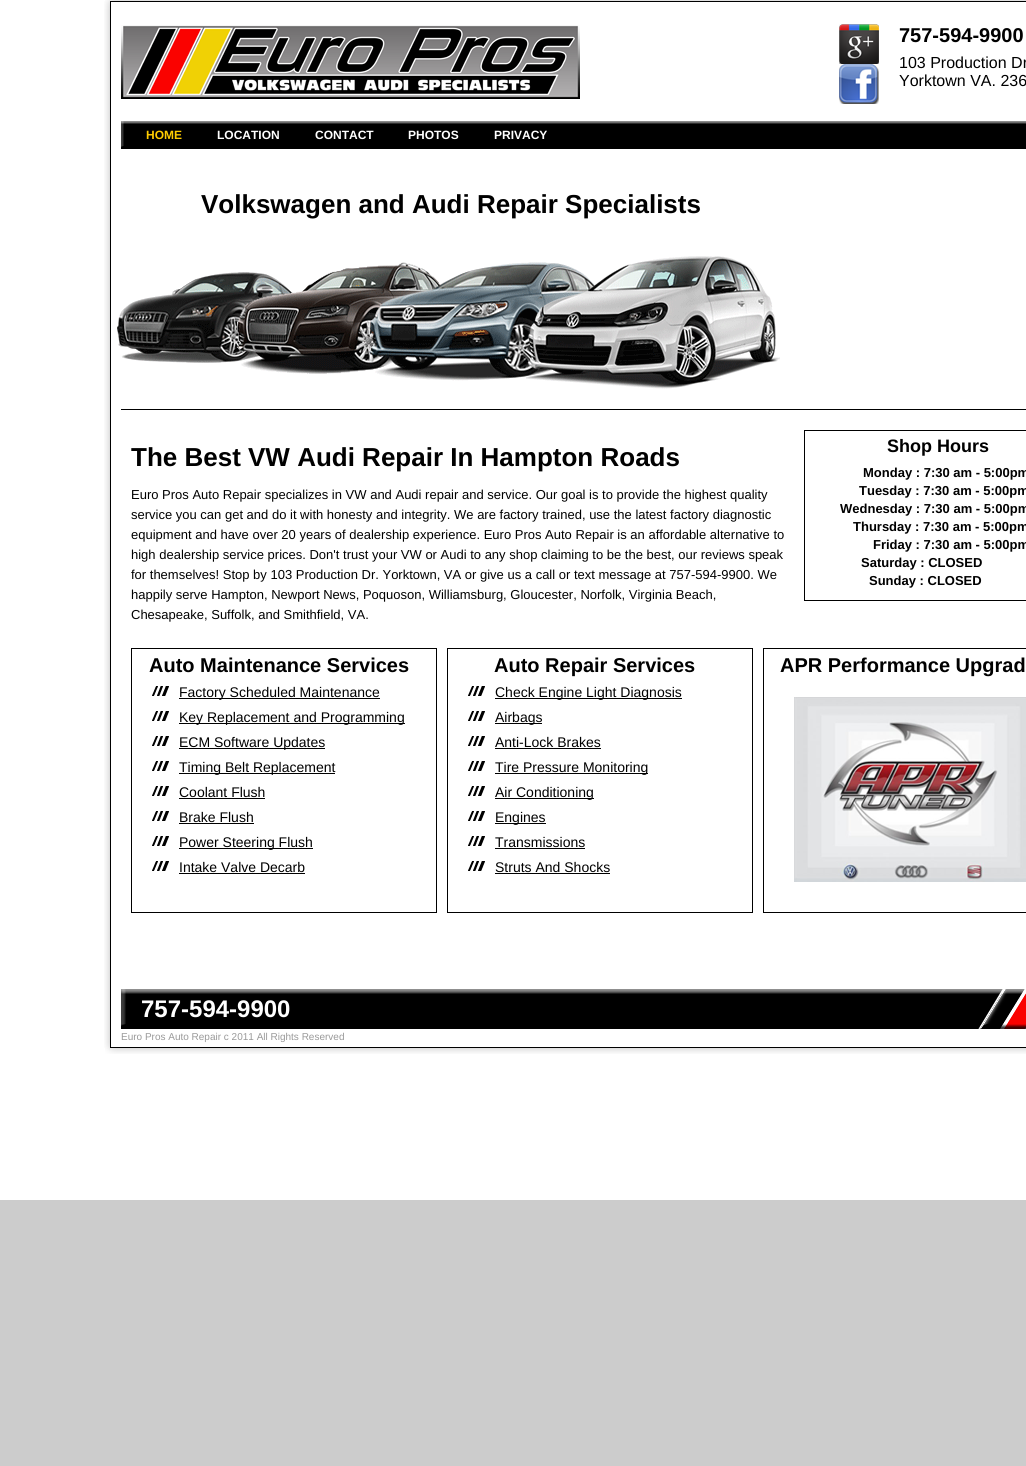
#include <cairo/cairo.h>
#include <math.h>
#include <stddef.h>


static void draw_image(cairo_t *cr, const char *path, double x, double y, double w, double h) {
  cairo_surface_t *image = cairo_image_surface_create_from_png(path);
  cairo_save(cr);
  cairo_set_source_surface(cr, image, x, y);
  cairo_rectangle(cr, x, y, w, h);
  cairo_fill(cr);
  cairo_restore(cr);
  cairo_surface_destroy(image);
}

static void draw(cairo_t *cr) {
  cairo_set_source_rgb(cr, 204 / 255.0, 204 / 255.0, 204 / 255.0);
  cairo_paint(cr);
  cairo_set_source_rgb(cr, 1, 1, 1);
  cairo_rectangle(cr, 0, 0, 1026, 1200);
  cairo_fill(cr);
  draw_image(cr, "images/1.png", 105, 0, 921, 1);
  draw_image(cr, "images/2.png", 104, 1, 6, 1047);
  cairo_rectangle(cr, 110.5, 1.5, 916, 1046);
  cairo_set_source_rgb(cr, 0, 0, 0);
  cairo_set_line_width(cr, 1);
  cairo_stroke(cr);
  draw_image(cr, "images/3.png", 121, 25, 459, 74);
  draw_image(cr, "images/4.png", 839, 24, 40, 40);
  draw_image(cr, "images/5.png", 839, 64, 40, 40);
  draw_image(cr, "images/6.png", 121, 121, 905, 28);
  draw_image(cr, "images/7.png", 117, 256, 663, 133);
  cairo_rectangle(cr, 121, 409, 905, 1);
  cairo_fill(cr);
  cairo_rectangle(cr, 804.5, 430.5, 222, 170);
  cairo_stroke(cr);
  cairo_rectangle(cr, 131.5, 648.5, 305, 264);
  cairo_stroke(cr);
  draw_image(cr, "images/8.png", 152, 686, 17, 10);
  cairo_rectangle(cr, 179, 698, 201, 1);
  cairo_fill(cr);
  draw_image(cr, "images/8.png", 152, 711, 17, 10);
  cairo_rectangle(cr, 179, 723, 226, 1);
  cairo_fill(cr);
  draw_image(cr, "images/8.png", 152, 736, 17, 10);
  cairo_rectangle(cr, 179, 748, 146, 1);
  cairo_fill(cr);
  draw_image(cr, "images/8.png", 152, 761, 17, 10);
  cairo_rectangle(cr, 179, 773, 156, 1);
  cairo_fill(cr);
  draw_image(cr, "images/8.png", 152, 786, 17, 10);
  cairo_rectangle(cr, 179, 798, 86, 1);
  cairo_fill(cr);
  draw_image(cr, "images/8.png", 152, 811, 17, 10);
  cairo_rectangle(cr, 179, 823, 75, 1);
  cairo_fill(cr);
  draw_image(cr, "images/8.png", 152, 836, 17, 10);
  cairo_rectangle(cr, 179, 848, 134, 1);
  cairo_fill(cr);
  draw_image(cr, "images/8.png", 152, 861, 17, 10);
  cairo_rectangle(cr, 179, 873, 126, 1);
  cairo_fill(cr);
  cairo_rectangle(cr, 447.5, 648.5, 305, 264);
  cairo_stroke(cr);
  draw_image(cr, "images/8.png", 468, 686, 17, 10);
  cairo_rectangle(cr, 495, 698, 187, 1);
  cairo_fill(cr);
  draw_image(cr, "images/8.png", 468, 711, 17, 10);
  cairo_rectangle(cr, 495, 723, 47, 1);
  cairo_fill(cr);
  draw_image(cr, "images/8.png", 468, 736, 17, 10);
  cairo_rectangle(cr, 495, 748, 106, 1);
  cairo_fill(cr);
  draw_image(cr, "images/8.png", 468, 761, 17, 10);
  cairo_rectangle(cr, 495, 773, 153, 1);
  cairo_fill(cr);
  draw_image(cr, "images/8.png", 468, 786, 17, 10);
  cairo_rectangle(cr, 495, 798, 99, 1);
  cairo_fill(cr);
  draw_image(cr, "images/8.png", 468, 811, 17, 10);
  cairo_rectangle(cr, 495, 823, 51, 1);
  cairo_fill(cr);
  draw_image(cr, "images/8.png", 468, 836, 17, 10);
  cairo_rectangle(cr, 495, 848, 90, 1);
  cairo_fill(cr);
  draw_image(cr, "images/8.png", 468, 861, 17, 10);
  cairo_rectangle(cr, 495, 873, 115, 1);
  cairo_fill(cr);
  cairo_rectangle(cr, 763.5, 648.5, 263, 264);
  cairo_stroke(cr);
  draw_image(cr, "images/9.png", 794, 697, 232, 185);
  draw_image(cr, "images/10.png", 121, 989, 905, 40);
  draw_image(cr, "images/11.png", 105, 1048, 921, 6);
  cairo_select_font_face(cr, "Liberation Sans", CAIRO_FONT_SLANT_NORMAL, CAIRO_FONT_WEIGHT_BOLD);
  cairo_set_font_size(cr, 20);
  cairo_move_to(cr, 899, 42);
  cairo_show_text(cr, "757-594-9900");
  cairo_select_font_face(cr, "Liberation Sans", CAIRO_FONT_SLANT_NORMAL, CAIRO_FONT_WEIGHT_NORMAL);
  cairo_set_font_size(cr, 16);
  cairo_move_to(cr, 899, 68);
  cairo_show_text(cr, "103 Production Dr");
  cairo_move_to(cr, 899, 86);
  cairo_show_text(cr, "Yorktown VA. 236");
  cairo_select_font_face(cr, "Liberation Sans", CAIRO_FONT_SLANT_NORMAL, CAIRO_FONT_WEIGHT_BOLD);
  cairo_set_font_size(cr, 12);
  cairo_set_source_rgb(cr, 1, 204 / 255.0, 0);
  cairo_move_to(cr, 146, 139);
  cairo_show_text(cr, "HOME");
  cairo_set_source_rgb(cr, 1, 1, 1);
  cairo_move_to(cr, 217, 139);
  cairo_show_text(cr, "LOCATION");
  cairo_move_to(cr, 315, 139);
  cairo_show_text(cr, "CONTACT");
  cairo_move_to(cr, 408, 139);
  cairo_show_text(cr, "PHOTOS");
  cairo_move_to(cr, 494, 139);
  cairo_show_text(cr, "PRIVACY");
  cairo_set_font_size(cr, 26);
  cairo_set_source_rgb(cr, 0, 0, 0);
  cairo_move_to(cr, 201, 213);
  cairo_show_text(cr, "Volkswagen and Audi Repair Specialists");
  cairo_move_to(cr, 131, 466);
  cairo_show_text(cr, "The Best VW Audi Repair In Hampton Roads");
  cairo_select_font_face(cr, "Liberation Sans", CAIRO_FONT_SLANT_NORMAL, CAIRO_FONT_WEIGHT_NORMAL);
  cairo_set_font_size(cr, 13);
  cairo_move_to(cr, 131, 499);
  cairo_show_text(cr, "Euro Pros Auto Repair specializes in VW and Audi repair and service. Our goal is to provide the highest quality");
  cairo_move_to(cr, 131, 519);
  cairo_show_text(cr, "service you can get and do it with honesty and integrity. We are factory trained, use the latest factory diagnostic");
  cairo_move_to(cr, 131, 539);
  cairo_show_text(cr, "equipment and have over 20 years of dealership experience. Euro Pros Auto Repair is an affordable alternative to");
  cairo_move_to(cr, 131, 559);
  cairo_show_text(cr, "high dealership service prices. Don't trust your VW or Audi to any shop claiming to be the best, our reviews speak");
  cairo_move_to(cr, 131, 579);
  cairo_show_text(cr, "for themselves! Stop by 103 Production Dr. Yorktown, VA or give us a call or text message at 757-594-9900. We");
  cairo_move_to(cr, 131, 599);
  cairo_show_text(cr, "happily serve Hampton, Newport News, Poquoson, Williamsburg, Gloucester, Norfolk, Virginia Beach,");
  cairo_move_to(cr, 131, 619);
  cairo_show_text(cr, "Chesapeake, Suffolk, and Smithfield, VA.");
  cairo_select_font_face(cr, "Liberation Sans", CAIRO_FONT_SLANT_NORMAL, CAIRO_FONT_WEIGHT_BOLD);
  cairo_set_font_size(cr, 18);
  cairo_move_to(cr, 887, 452);
  cairo_show_text(cr, "Shop Hours");
  cairo_set_font_size(cr, 13);
  cairo_move_to(cr, 863, 477);
  cairo_show_text(cr, "Monday : 7:30 am - 5:00pm");
  cairo_move_to(cr, 859, 495);
  cairo_show_text(cr, "Tuesday : 7:30 am - 5:00pm");
  cairo_move_to(cr, 840, 513);
  cairo_show_text(cr, "Wednesday : 7:30 am - 5:00pm");
  cairo_move_to(cr, 853, 531);
  cairo_show_text(cr, "Thursday : 7:30 am - 5:00pm");
  cairo_move_to(cr, 873, 549);
  cairo_show_text(cr, "Friday : 7:30 am - 5:00pm");
  cairo_move_to(cr, 861, 567);
  cairo_show_text(cr, "Saturday : CLOSED");
  cairo_move_to(cr, 869, 585);
  cairo_show_text(cr, "Sunday : CLOSED");
  cairo_set_font_size(cr, 20);
  cairo_move_to(cr, 149, 672);
  cairo_show_text(cr, "Auto Maintenance Services");
  cairo_select_font_face(cr, "Liberation Sans", CAIRO_FONT_SLANT_NORMAL, CAIRO_FONT_WEIGHT_NORMAL);
  cairo_set_font_size(cr, 14);
  cairo_move_to(cr, 179, 697);
  cairo_show_text(cr, "Factory Scheduled Maintenance");
  cairo_move_to(cr, 179, 722);
  cairo_show_text(cr, "Key Replacement and Programming");
  cairo_move_to(cr, 179, 747);
  cairo_show_text(cr, "ECM Software Updates");
  cairo_move_to(cr, 179, 772);
  cairo_show_text(cr, "Timing Belt Replacement");
  cairo_move_to(cr, 179, 797);
  cairo_show_text(cr, "Coolant Flush");
  cairo_move_to(cr, 179, 822);
  cairo_show_text(cr, "Brake Flush");
  cairo_move_to(cr, 179, 847);
  cairo_show_text(cr, "Power Steering Flush");
  cairo_move_to(cr, 179, 872);
  cairo_show_text(cr, "Intake Valve Decarb");
  cairo_select_font_face(cr, "Liberation Sans", CAIRO_FONT_SLANT_NORMAL, CAIRO_FONT_WEIGHT_BOLD);
  cairo_set_font_size(cr, 20);
  cairo_move_to(cr, 494, 672);
  cairo_show_text(cr, "Auto Repair Services");
  cairo_select_font_face(cr, "Liberation Sans", CAIRO_FONT_SLANT_NORMAL, CAIRO_FONT_WEIGHT_NORMAL);
  cairo_set_font_size(cr, 14);
  cairo_move_to(cr, 495, 697);
  cairo_show_text(cr, "Check Engine Light Diagnosis");
  cairo_move_to(cr, 495, 722);
  cairo_show_text(cr, "Airbags");
  cairo_move_to(cr, 495, 747);
  cairo_show_text(cr, "Anti-Lock Brakes");
  cairo_move_to(cr, 495, 772);
  cairo_show_text(cr, "Tire Pressure Monitoring");
  cairo_move_to(cr, 495, 797);
  cairo_show_text(cr, "Air Conditioning");
  cairo_move_to(cr, 495, 822);
  cairo_show_text(cr, "Engines");
  cairo_move_to(cr, 495, 847);
  cairo_show_text(cr, "Transmissions");
  cairo_move_to(cr, 495, 872);
  cairo_show_text(cr, "Struts And Shocks");
  cairo_select_font_face(cr, "Liberation Sans", CAIRO_FONT_SLANT_NORMAL, CAIRO_FONT_WEIGHT_BOLD);
  cairo_set_font_size(cr, 20);
  cairo_move_to(cr, 780, 672);
  cairo_show_text(cr, "APR Performance Upgrad");
  cairo_set_font_size(cr, 24);
  cairo_set_source_rgb(cr, 1, 1, 1);
  cairo_move_to(cr, 141, 1017);
  cairo_show_text(cr, "757-594-9900");
  cairo_select_font_face(cr, "Liberation Sans", CAIRO_FONT_SLANT_NORMAL, CAIRO_FONT_WEIGHT_NORMAL);
  cairo_set_font_size(cr, 10);
  cairo_set_source_rgb(cr, 153 / 255.0, 153 / 255.0, 153 / 255.0);
  cairo_move_to(cr, 121, 1040);
  cairo_show_text(cr, "Euro Pros Auto Repair c 2011 All Rights Reserved");
}

int main(void) {
  cairo_surface_t *surface = cairo_image_surface_create(CAIRO_FORMAT_RGB24, 1026, 1466);
  cairo_t *cr = cairo_create(surface);
  cairo_font_options_t *options = cairo_font_options_create();
  cairo_font_options_set_hint_metrics(options, CAIRO_HINT_METRICS_OFF);
  cairo_font_options_set_hint_style(options, CAIRO_HINT_STYLE_NONE);
  cairo_set_font_options(cr, options);
  cairo_set_miter_limit(cr, 4);
  draw(cr);
  cairo_surface_write_to_png(surface, "out.png");
  cairo_font_options_destroy(options);
  cairo_destroy(cr);
  cairo_surface_destroy(surface);
  return 0;
}
